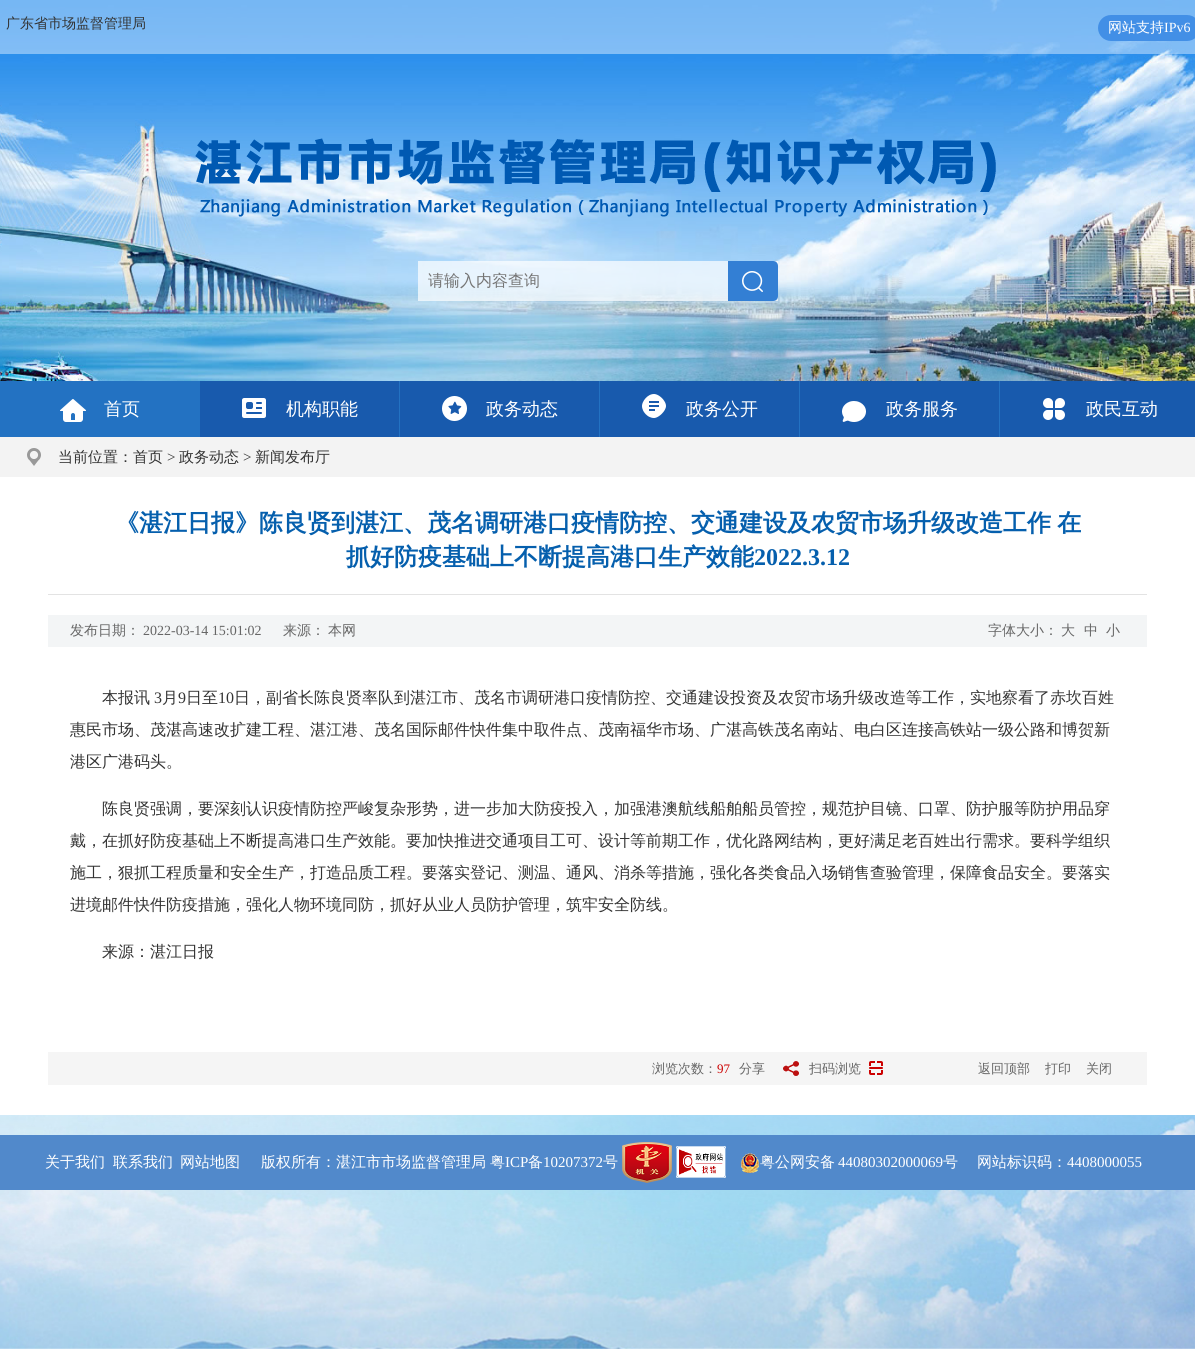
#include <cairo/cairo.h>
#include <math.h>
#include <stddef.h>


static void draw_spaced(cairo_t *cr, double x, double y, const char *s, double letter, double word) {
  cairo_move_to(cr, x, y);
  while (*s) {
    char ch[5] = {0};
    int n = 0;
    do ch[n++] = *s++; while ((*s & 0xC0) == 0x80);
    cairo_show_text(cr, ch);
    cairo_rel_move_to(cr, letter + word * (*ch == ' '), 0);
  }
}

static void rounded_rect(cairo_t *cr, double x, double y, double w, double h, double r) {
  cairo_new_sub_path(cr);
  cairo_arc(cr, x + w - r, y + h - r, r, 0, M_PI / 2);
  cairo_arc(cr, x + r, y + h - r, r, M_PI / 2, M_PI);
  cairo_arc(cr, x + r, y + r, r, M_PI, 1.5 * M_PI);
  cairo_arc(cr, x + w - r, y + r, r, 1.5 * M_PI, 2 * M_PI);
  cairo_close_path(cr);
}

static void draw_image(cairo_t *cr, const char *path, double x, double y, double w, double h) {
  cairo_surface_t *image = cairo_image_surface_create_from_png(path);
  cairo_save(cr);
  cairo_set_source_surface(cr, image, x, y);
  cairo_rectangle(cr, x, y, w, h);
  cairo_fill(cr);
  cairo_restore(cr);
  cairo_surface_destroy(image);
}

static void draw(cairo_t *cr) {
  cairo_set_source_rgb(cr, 1, 1, 1);
  cairo_paint(cr);
  draw_image(cr, "images/1.png", 0, 1115, 1195, 234);
  draw_image(cr, "images/2.png", 0, 0, 1195, 381);
  cairo_set_source_rgba(cr, 218 / 255.0, 236 / 255.0, 1, 0.5);
  cairo_rectangle(cr, 0, 0, 1195, 54);
  cairo_fill(cr);
  cairo_set_source_rgb(cr, 66 / 255.0, 143 / 255.0, 230 / 255.0);
  rounded_rect(cr, 1098, 15, 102, 26, 13);
  cairo_fill(cr);
  draw_image(cr, "images/3.png", 195, 138, 801, 79);
  cairo_set_source_rgba(cr, 1, 1, 1, 0.7);
  cairo_rectangle(cr, 418, 261, 360, 40);
  cairo_fill(cr);
  cairo_set_source_rgb(cr, 51 / 255.0, 127 / 255.0, 212 / 255.0);
  cairo_new_path(cr);
  cairo_move_to(cr, 728, 261);
  cairo_line_to(cr, 773, 261);
  cairo_curve_to(cr, 776, 261, 778, 263, 778, 266);
  cairo_line_to(cr, 778, 296);
  cairo_curve_to(cr, 778, 299, 776, 301, 773, 301);
  cairo_line_to(cr, 728, 301);
  cairo_close_path(cr);
  cairo_fill(cr);
  draw_image(cr, "images/4.png", 742, 271, 21, 21);
  cairo_set_source_rgb(cr, 24 / 255.0, 90 / 255.0, 173 / 255.0);
  cairo_rectangle(cr, 200, 381, 995, 56);
  cairo_fill(cr);
  cairo_set_source_rgb(cr, 35 / 255.0, 114 / 255.0, 194 / 255.0);
  cairo_rectangle(cr, 0, 381, 200, 56);
  cairo_fill(cr);
  draw_image(cr, "images/5.png", 60, 399, 26, 23);
  cairo_rectangle(cr, 399, 381, 1, 56);
  cairo_fill(cr);
  draw_image(cr, "images/6.png", 242, 398, 24, 20);
  cairo_rectangle(cr, 599, 381, 1, 56);
  cairo_fill(cr);
  draw_image(cr, "images/7.png", 442, 396, 25, 25);
  cairo_rectangle(cr, 799, 381, 1, 56);
  cairo_fill(cr);
  draw_image(cr, "images/8.png", 642, 394, 24, 24);
  cairo_rectangle(cr, 999, 381, 1, 56);
  cairo_fill(cr);
  draw_image(cr, "images/9.png", 842, 401, 24, 21);
  draw_image(cr, "images/10.png", 1043, 398, 22, 22);
  cairo_set_source_rgb(cr, 243 / 255.0, 243 / 255.0, 243 / 255.0);
  cairo_rectangle(cr, 0, 437, 1195, 40);
  cairo_fill(cr);
  draw_image(cr, "images/11.png", 27, 448, 14, 18);
  cairo_set_source_rgb(cr, 227 / 255.0, 227 / 255.0, 227 / 255.0);
  cairo_rectangle(cr, 48, 594, 1099, 1);
  cairo_fill(cr);
  cairo_set_source_rgb(cr, 243 / 255.0, 245 / 255.0, 246 / 255.0);
  cairo_rectangle(cr, 48, 615, 1099, 32);
  cairo_fill(cr);
  cairo_set_source_rgb(cr, 245 / 255.0, 245 / 255.0, 245 / 255.0);
  cairo_rectangle(cr, 48, 1052, 1099, 33);
  cairo_fill(cr);
  draw_image(cr, "images/12.png", 783, 1061, 16, 15);
  draw_image(cr, "images/13.png", 869, 1061, 14, 14);
  cairo_set_source_rgb(cr, 81 / 255.0, 137 / 255.0, 203 / 255.0);
  cairo_rectangle(cr, 0, 1135, 1195, 55);
  cairo_fill(cr);
  draw_image(cr, "images/14.png", 622, 1142, 50, 41);
  draw_image(cr, "images/15.png", 676, 1146, 50, 32);
  draw_image(cr, "images/16.png", 741, 1153, 18, 20);
  cairo_select_font_face(cr, "WenQuanYi Zen Hei Medium", CAIRO_FONT_SLANT_NORMAL, CAIRO_FONT_WEIGHT_NORMAL);
  cairo_set_font_size(cr, 14);
  cairo_set_source_rgb(cr, 51 / 255.0, 51 / 255.0, 51 / 255.0);
  cairo_move_to(cr, 6, 28);
  cairo_show_text(cr, "广东省市场监督管理局");
  cairo_set_source_rgb(cr, 1, 1, 1);
  cairo_move_to(cr, 1108, 32);
  cairo_show_text(cr, "网站支持");
  cairo_select_font_face(cr, "Liberation Serif", CAIRO_FONT_SLANT_NORMAL, CAIRO_FONT_WEIGHT_NORMAL);
  cairo_move_to(cr, 1164, 32);
  cairo_show_text(cr, "IPv6");
  cairo_select_font_face(cr, "WenQuanYi Zen Hei Medium", CAIRO_FONT_SLANT_NORMAL, CAIRO_FONT_WEIGHT_NORMAL);
  cairo_set_font_size(cr, 16);
  cairo_set_source_rgb(cr, 117 / 255.0, 117 / 255.0, 117 / 255.0);
  cairo_move_to(cr, 428, 286);
  cairo_show_text(cr, "请输入内容查询");
  cairo_set_font_size(cr, 18);
  cairo_set_source_rgb(cr, 1, 1, 1);
  cairo_move_to(cr, 104, 415);
  cairo_show_text(cr, "首页");
  cairo_move_to(cr, 286, 415);
  cairo_show_text(cr, "机构职能");
  cairo_move_to(cr, 486, 415);
  cairo_show_text(cr, "政务动态");
  cairo_move_to(cr, 686, 415);
  cairo_show_text(cr, "政务公开");
  cairo_move_to(cr, 886, 415);
  cairo_show_text(cr, "政务服务");
  cairo_move_to(cr, 1086, 415);
  cairo_show_text(cr, "政民互动");
  cairo_set_font_size(cr, 15);
  cairo_set_source_rgb(cr, 51 / 255.0, 51 / 255.0, 51 / 255.0);
  cairo_move_to(cr, 58, 462);
  cairo_show_text(cr, "当前位置：首页");
  cairo_select_font_face(cr, "Liberation Serif", CAIRO_FONT_SLANT_NORMAL, CAIRO_FONT_WEIGHT_NORMAL);
  cairo_move_to(cr, 167, 462);
  cairo_show_text(cr, ">");
  cairo_select_font_face(cr, "WenQuanYi Zen Hei Medium", CAIRO_FONT_SLANT_NORMAL, CAIRO_FONT_WEIGHT_NORMAL);
  cairo_move_to(cr, 179, 462);
  cairo_show_text(cr, "政务动态");
  cairo_select_font_face(cr, "Liberation Serif", CAIRO_FONT_SLANT_NORMAL, CAIRO_FONT_WEIGHT_NORMAL);
  cairo_move_to(cr, 243, 462);
  cairo_show_text(cr, ">");
  cairo_select_font_face(cr, "WenQuanYi Zen Hei Medium", CAIRO_FONT_SLANT_NORMAL, CAIRO_FONT_WEIGHT_NORMAL);
  cairo_move_to(cr, 255, 462);
  cairo_show_text(cr, "新闻发布厅");
  cairo_select_font_face(cr, "WenQuanYi Zen Hei", CAIRO_FONT_SLANT_NORMAL, CAIRO_FONT_WEIGHT_BOLD);
  cairo_set_font_size(cr, 24);
  cairo_set_source_rgb(cr, 5 / 255.0, 95 / 255.0, 173 / 255.0);
  draw_spaced(cr, 115, 531, "《湛江日报》陈良贤到湛江、茂名调研港口疫情防控、交通建设及农贸市场升级改造工作 在", 0, -1);
  cairo_move_to(cr, 346, 565);
  cairo_show_text(cr, "抓好防疫基础上不断提高港口生产效能");
  cairo_select_font_face(cr, "Liberation Serif", CAIRO_FONT_SLANT_NORMAL, CAIRO_FONT_WEIGHT_BOLD);
  cairo_move_to(cr, 754, 565);
  cairo_show_text(cr, "2022.3.12");
  cairo_select_font_face(cr, "WenQuanYi Zen Hei Medium", CAIRO_FONT_SLANT_NORMAL, CAIRO_FONT_WEIGHT_NORMAL);
  cairo_set_font_size(cr, 14);
  cairo_set_source_rgb(cr, 102 / 255.0, 102 / 255.0, 102 / 255.0);
  cairo_move_to(cr, 70, 635);
  cairo_show_text(cr, "发布日期：");
  cairo_select_font_face(cr, "Liberation Serif", CAIRO_FONT_SLANT_NORMAL, CAIRO_FONT_WEIGHT_NORMAL);
  cairo_move_to(cr, 143, 635);
  cairo_show_text(cr, "2022-03-14 15:01:02");
  cairo_select_font_face(cr, "WenQuanYi Zen Hei Medium", CAIRO_FONT_SLANT_NORMAL, CAIRO_FONT_WEIGHT_NORMAL);
  cairo_move_to(cr, 283, 635);
  cairo_show_text(cr, "来源：");
  cairo_move_to(cr, 328, 635);
  cairo_show_text(cr, "本网");
  cairo_move_to(cr, 988, 635);
  cairo_show_text(cr, "字体大小：");
  cairo_move_to(cr, 1061, 635);
  cairo_show_text(cr, "大");
  cairo_move_to(cr, 1084, 635);
  cairo_show_text(cr, "中");
  cairo_move_to(cr, 1106, 635);
  cairo_show_text(cr, "小");
  cairo_set_font_size(cr, 16);
  cairo_set_source_rgb(cr, 51 / 255.0, 51 / 255.0, 51 / 255.0);
  cairo_move_to(cr, 102, 703);
  cairo_show_text(cr, "本报讯");
  cairo_select_font_face(cr, "Liberation Serif", CAIRO_FONT_SLANT_NORMAL, CAIRO_FONT_WEIGHT_NORMAL);
  cairo_move_to(cr, 154, 703);
  cairo_show_text(cr, "3");
  cairo_select_font_face(cr, "WenQuanYi Zen Hei Medium", CAIRO_FONT_SLANT_NORMAL, CAIRO_FONT_WEIGHT_NORMAL);
  cairo_move_to(cr, 162, 703);
  cairo_show_text(cr, "月");
  cairo_select_font_face(cr, "Liberation Serif", CAIRO_FONT_SLANT_NORMAL, CAIRO_FONT_WEIGHT_NORMAL);
  cairo_move_to(cr, 178, 703);
  cairo_show_text(cr, "9");
  cairo_select_font_face(cr, "WenQuanYi Zen Hei Medium", CAIRO_FONT_SLANT_NORMAL, CAIRO_FONT_WEIGHT_NORMAL);
  cairo_move_to(cr, 186, 703);
  cairo_show_text(cr, "日至");
  cairo_select_font_face(cr, "Liberation Serif", CAIRO_FONT_SLANT_NORMAL, CAIRO_FONT_WEIGHT_NORMAL);
  cairo_move_to(cr, 218, 703);
  cairo_show_text(cr, "10");
  cairo_select_font_face(cr, "WenQuanYi Zen Hei Medium", CAIRO_FONT_SLANT_NORMAL, CAIRO_FONT_WEIGHT_NORMAL);
  cairo_move_to(cr, 234, 703);
  cairo_show_text(cr, "日，副省长陈良贤率队到湛江市、茂名市调研港口疫情防控、交通建设投资及农贸市场升级改造等工作，实地察看了赤坎百姓");
  cairo_move_to(cr, 70, 735);
  cairo_show_text(cr, "惠民市场、茂湛高速改扩建工程、湛江港、茂名国际邮件快件集中取件点、茂南福华市场、广湛高铁茂名南站、电白区连接高铁站一级公路和博贺新");
  cairo_move_to(cr, 70, 767);
  cairo_show_text(cr, "港区广港码头。");
  cairo_move_to(cr, 102, 814);
  cairo_show_text(cr, "陈良贤强调，要深刻认识疫情防控严峻复杂形势，进一步加大防疫投入，加强港澳航线船舶船员管控，规范护目镜、口罩、防护服等防护用品穿");
  cairo_move_to(cr, 70, 846);
  cairo_show_text(cr, "戴，在抓好防疫基础上不断提高港口生产效能。要加快推进交通项目工可、设计等前期工作，优化路网结构，更好满足老百姓出行需求。要科学组织");
  cairo_move_to(cr, 70, 878);
  cairo_show_text(cr, "施工，狠抓工程质量和安全生产，打造品质工程。要落实登记、测温、通风、消杀等措施，强化各类食品入场销售查验管理，保障食品安全。要落实");
  cairo_move_to(cr, 70, 910);
  cairo_show_text(cr, "进境邮件快件防疫措施，强化人物环境同防，抓好从业人员防护管理，筑牢安全防线。");
  cairo_move_to(cr, 102, 957);
  cairo_show_text(cr, "来源：湛江日报");
  cairo_set_font_size(cr, 13);
  cairo_set_source_rgb(cr, 102 / 255.0, 102 / 255.0, 102 / 255.0);
  cairo_move_to(cr, 652, 1073);
  cairo_show_text(cr, "浏览次数：");
  cairo_select_font_face(cr, "Liberation Serif", CAIRO_FONT_SLANT_NORMAL, CAIRO_FONT_WEIGHT_NORMAL);
  cairo_set_source_rgb(cr, 204 / 255.0, 0, 0);
  cairo_move_to(cr, 717, 1073);
  cairo_show_text(cr, "97");
  cairo_select_font_face(cr, "WenQuanYi Zen Hei Medium", CAIRO_FONT_SLANT_NORMAL, CAIRO_FONT_WEIGHT_NORMAL);
  cairo_set_source_rgb(cr, 102 / 255.0, 102 / 255.0, 102 / 255.0);
  cairo_move_to(cr, 739, 1073);
  cairo_show_text(cr, "分享");
  cairo_move_to(cr, 809, 1073);
  cairo_show_text(cr, "扫码浏览");
  cairo_move_to(cr, 978, 1073);
  cairo_show_text(cr, "返回顶部");
  cairo_move_to(cr, 1045, 1073);
  cairo_show_text(cr, "打印");
  cairo_move_to(cr, 1086, 1073);
  cairo_show_text(cr, "关闭");
  cairo_set_font_size(cr, 15);
  cairo_set_source_rgb(cr, 1, 1, 1);
  cairo_move_to(cr, 45, 1167);
  cairo_show_text(cr, "关于我们");
  cairo_move_to(cr, 113, 1167);
  cairo_show_text(cr, "联系我们");
  cairo_move_to(cr, 180, 1167);
  cairo_show_text(cr, "网站地图");
  cairo_move_to(cr, 261, 1167);
  cairo_show_text(cr, "版权所有：湛江市市场监督管理局");
  cairo_move_to(cr, 490, 1167);
  cairo_show_text(cr, "粤");
  cairo_select_font_face(cr, "Liberation Serif", CAIRO_FONT_SLANT_NORMAL, CAIRO_FONT_WEIGHT_NORMAL);
  cairo_move_to(cr, 505, 1167);
  cairo_show_text(cr, "ICP");
  cairo_select_font_face(cr, "WenQuanYi Zen Hei Medium", CAIRO_FONT_SLANT_NORMAL, CAIRO_FONT_WEIGHT_NORMAL);
  cairo_move_to(cr, 528, 1167);
  cairo_show_text(cr, "备");
  cairo_select_font_face(cr, "Liberation Serif", CAIRO_FONT_SLANT_NORMAL, CAIRO_FONT_WEIGHT_NORMAL);
  cairo_move_to(cr, 543, 1167);
  cairo_show_text(cr, "10207372");
  cairo_select_font_face(cr, "WenQuanYi Zen Hei Medium", CAIRO_FONT_SLANT_NORMAL, CAIRO_FONT_WEIGHT_NORMAL);
  cairo_move_to(cr, 603, 1167);
  cairo_show_text(cr, "号");
  cairo_move_to(cr, 760, 1167);
  cairo_show_text(cr, "粤公网安备");
  cairo_select_font_face(cr, "Liberation Serif", CAIRO_FONT_SLANT_NORMAL, CAIRO_FONT_WEIGHT_NORMAL);
  cairo_move_to(cr, 838, 1167);
  cairo_show_text(cr, "44080302000069");
  cairo_select_font_face(cr, "WenQuanYi Zen Hei Medium", CAIRO_FONT_SLANT_NORMAL, CAIRO_FONT_WEIGHT_NORMAL);
  cairo_move_to(cr, 943, 1167);
  cairo_show_text(cr, "号");
  cairo_move_to(cr, 977, 1167);
  cairo_show_text(cr, "网站标识码：");
  cairo_select_font_face(cr, "Liberation Serif", CAIRO_FONT_SLANT_NORMAL, CAIRO_FONT_WEIGHT_NORMAL);
  cairo_move_to(cr, 1067, 1167);
  cairo_show_text(cr, "4408000055");
}

int main(void) {
  cairo_surface_t *surface = cairo_image_surface_create(CAIRO_FORMAT_RGB24, 1195, 1349);
  cairo_t *cr = cairo_create(surface);
  cairo_font_options_t *options = cairo_font_options_create();
  cairo_font_options_set_hint_metrics(options, CAIRO_HINT_METRICS_OFF);
  cairo_font_options_set_hint_style(options, CAIRO_HINT_STYLE_NONE);
  cairo_set_font_options(cr, options);
  cairo_set_miter_limit(cr, 4);
  draw(cr);
  cairo_surface_write_to_png(surface, "out.png");
  cairo_font_options_destroy(options);
  cairo_destroy(cr);
  cairo_surface_destroy(surface);
  return 0;
}
